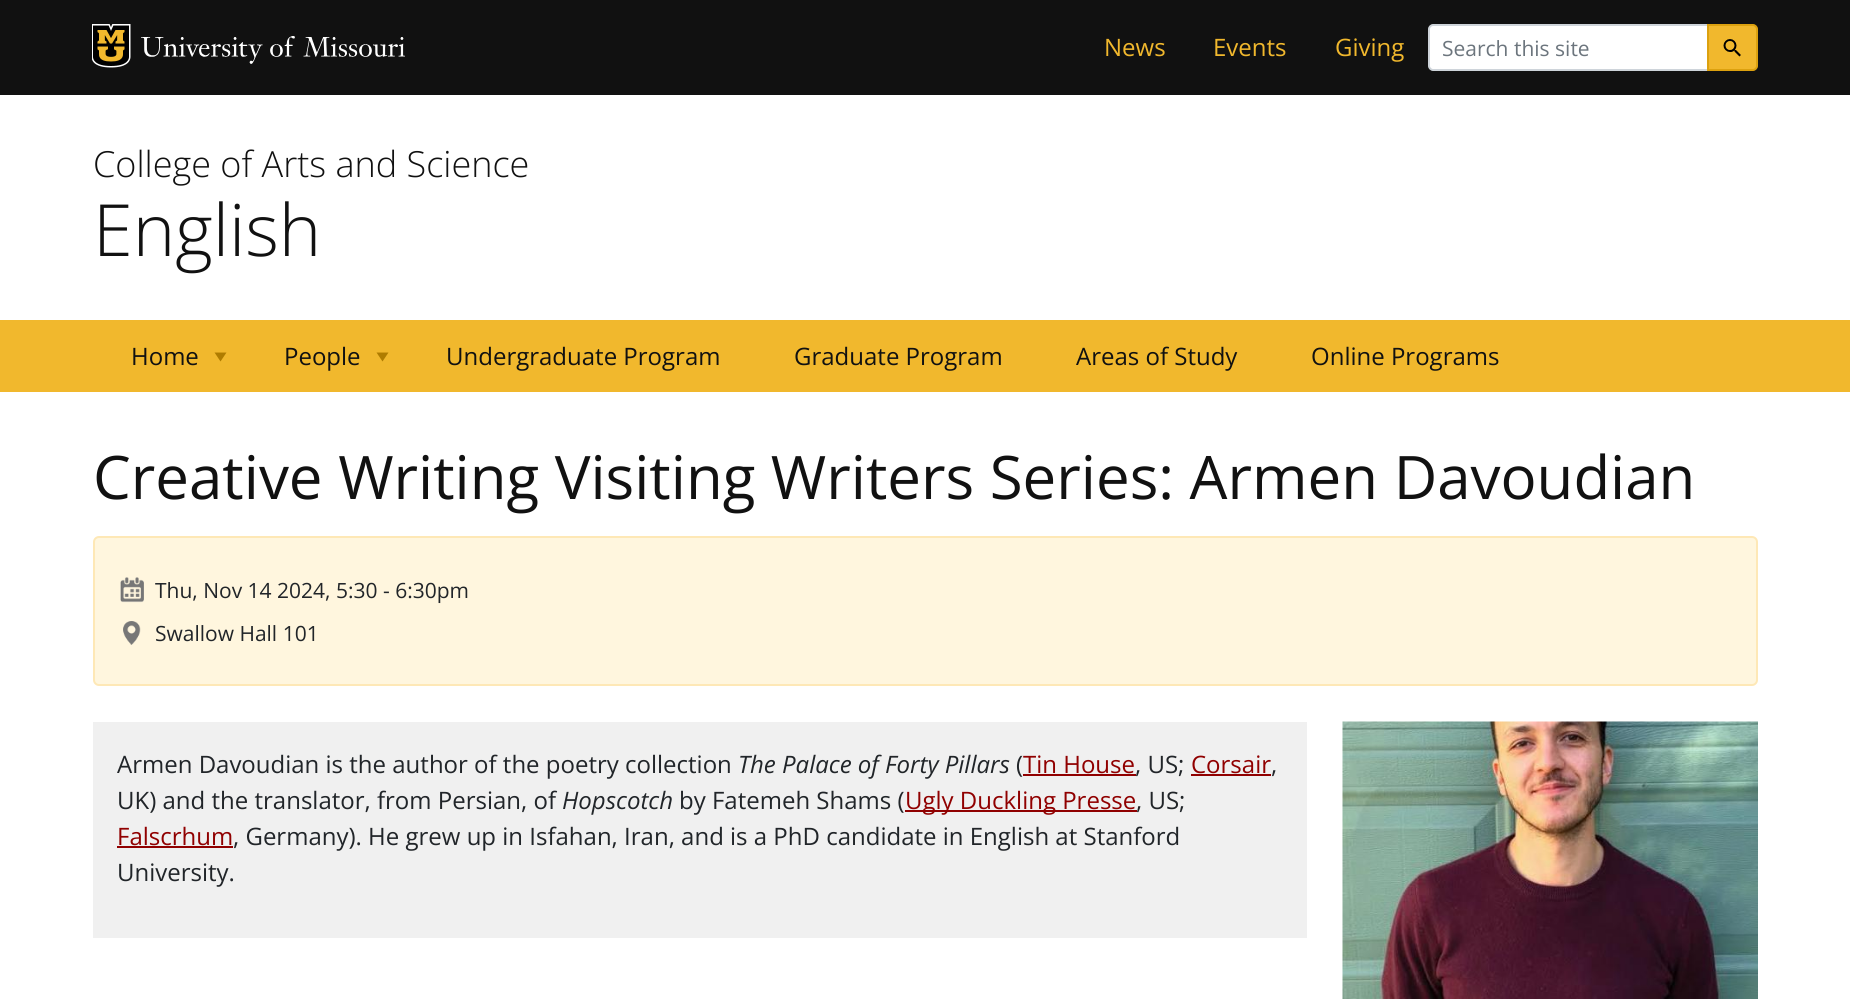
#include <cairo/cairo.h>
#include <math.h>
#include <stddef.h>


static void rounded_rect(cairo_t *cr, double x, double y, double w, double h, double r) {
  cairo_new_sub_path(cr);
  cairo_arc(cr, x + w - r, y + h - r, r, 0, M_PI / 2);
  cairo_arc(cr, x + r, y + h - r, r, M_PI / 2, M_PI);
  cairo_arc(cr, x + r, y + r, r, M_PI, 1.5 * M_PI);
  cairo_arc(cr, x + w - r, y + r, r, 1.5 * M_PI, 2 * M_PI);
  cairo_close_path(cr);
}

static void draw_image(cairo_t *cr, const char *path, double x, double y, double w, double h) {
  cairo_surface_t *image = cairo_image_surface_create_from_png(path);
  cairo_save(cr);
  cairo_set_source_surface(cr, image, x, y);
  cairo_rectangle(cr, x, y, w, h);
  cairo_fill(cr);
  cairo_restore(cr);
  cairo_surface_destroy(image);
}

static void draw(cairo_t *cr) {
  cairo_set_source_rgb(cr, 1, 1, 1);
  cairo_paint(cr);
  cairo_set_source_rgb(cr, 17 / 255.0, 17 / 255.0, 17 / 255.0);
  cairo_rectangle(cr, 0, 0, 1850, 95);
  cairo_fill(cr);
  draw_image(cr, "images/1.png", 92, 24, 39, 44);
  draw_image(cr, "images/2.png", 141, 36, 264, 28);
  cairo_set_source_rgb(cr, 1, 1, 1);
  cairo_new_path(cr);
  cairo_move_to(cr, 1433, 25);
  cairo_line_to(cr, 1708, 25);
  cairo_line_to(cr, 1708, 70);
  cairo_line_to(cr, 1433, 70);
  cairo_curve_to(cr, 1431, 70, 1429, 68, 1429, 66);
  cairo_line_to(cr, 1429, 29);
  cairo_curve_to(cr, 1429, 27, 1431, 25, 1433, 25);
  cairo_close_path(cr);
  cairo_fill_preserve(cr);
  cairo_set_source_rgb(cr, 206 / 255.0, 212 / 255.0, 218 / 255.0);
  cairo_stroke(cr);
  cairo_set_source_rgb(cr, 241 / 255.0, 184 / 255.0, 45 / 255.0);
  cairo_new_path(cr);
  cairo_move_to(cr, 1708, 25);
  cairo_line_to(cr, 1753, 25);
  cairo_curve_to(cr, 1755, 25, 1757, 27, 1757, 29);
  cairo_line_to(cr, 1757, 66);
  cairo_curve_to(cr, 1757, 68, 1755, 70, 1753, 70);
  cairo_line_to(cr, 1708, 70);
  cairo_close_path(cr);
  cairo_fill_preserve(cr);
  cairo_set_source_rgb(cr, 220 / 255.0, 161 / 255.0, 15 / 255.0);
  cairo_stroke(cr);
  draw_image(cr, "images/3.png", 1723, 39, 18, 18);
  cairo_set_source_rgb(cr, 241 / 255.0, 184 / 255.0, 45 / 255.0);
  cairo_rectangle(cr, 0, 320, 1850, 72);
  cairo_fill(cr);
  cairo_set_source_rgb(cr, 175 / 255.0, 124 / 255.0, 0);
  cairo_new_path(cr);
  cairo_move_to(cr, 214.5, 352.5);
  cairo_line_to(cr, 226.5, 352.5);
  cairo_line_to(cr, 220.5, 361.5);
  cairo_close_path(cr);
  cairo_fill(cr);
  cairo_new_path(cr);
  cairo_move_to(cr, 376.5, 352.5);
  cairo_line_to(cr, 388.5, 352.5);
  cairo_line_to(cr, 382.5, 361.5);
  cairo_close_path(cr);
  cairo_fill(cr);
  cairo_set_source_rgb(cr, 1, 246 / 255.0, 222 / 255.0);
  rounded_rect(cr, 94, 537, 1663, 148, 5);
  cairo_fill_preserve(cr);
  cairo_set_source_rgb(cr, 254 / 255.0, 232 / 255.0, 182 / 255.0);
  cairo_stroke(cr);
  draw_image(cr, "images/4.png", 120, 577, 24, 26);
  draw_image(cr, "images/5.png", 123, 621, 18, 24);
  cairo_set_source_rgb(cr, 240 / 255.0, 240 / 255.0, 240 / 255.0);
  cairo_rectangle(cr, 93, 722, 1214, 216);
  cairo_fill(cr);
  cairo_set_source_rgb(cr, 144 / 255.0, 0, 0);
  cairo_rectangle(cr, 1023, 774, 113, 2);
  cairo_fill(cr);
  cairo_rectangle(cr, 1191, 774, 80, 2);
  cairo_fill(cr);
  cairo_rectangle(cr, 905, 810, 232, 2);
  cairo_fill(cr);
  cairo_rectangle(cr, 117, 846, 116, 2);
  cairo_fill(cr);
  draw_image(cr, "images/6.png", 1342, 721, 416, 278);
  cairo_select_font_face(cr, "Open Sans", CAIRO_FONT_SLANT_NORMAL, CAIRO_FONT_WEIGHT_NORMAL);
  cairo_set_font_size(cr, 24);
  cairo_set_source_rgb(cr, 241 / 255.0, 184 / 255.0, 45 / 255.0);
  cairo_move_to(cr, 1104, 56);
  cairo_show_text(cr, "News");
  cairo_move_to(cr, 1213, 56);
  cairo_show_text(cr, "Events");
  cairo_move_to(cr, 1335, 56);
  cairo_show_text(cr, "Giving");
  cairo_set_font_size(cr, 21);
  cairo_set_source_rgb(cr, 108 / 255.0, 117 / 255.0, 125 / 255.0);
  cairo_move_to(cr, 1442, 56);
  cairo_show_text(cr, "Search this site");
  cairo_select_font_face(cr, "Open Sans Light", CAIRO_FONT_SLANT_NORMAL, CAIRO_FONT_WEIGHT_NORMAL);
  cairo_set_font_size(cr, 36);
  cairo_set_source_rgb(cr, 17 / 255.0, 17 / 255.0, 17 / 255.0);
  cairo_move_to(cr, 93, 177);
  cairo_show_text(cr, "College of Arts and Science");
  cairo_set_font_size(cr, 72);
  cairo_move_to(cr, 93, 256);
  cairo_show_text(cr, "English");
  cairo_select_font_face(cr, "Open Sans", CAIRO_FONT_SLANT_NORMAL, CAIRO_FONT_WEIGHT_NORMAL);
  cairo_set_font_size(cr, 24);
  cairo_move_to(cr, 131, 365);
  cairo_show_text(cr, "Home");
  cairo_move_to(cr, 284, 365);
  cairo_show_text(cr, "People");
  cairo_move_to(cr, 446, 365);
  cairo_show_text(cr, "Undergraduate Program");
  cairo_move_to(cr, 794, 365);
  cairo_show_text(cr, "Graduate Program");
  cairo_move_to(cr, 1076, 365);
  cairo_show_text(cr, "Areas of Study");
  cairo_move_to(cr, 1311, 365);
  cairo_show_text(cr, "Online Programs");
  cairo_set_font_size(cr, 60);
  cairo_move_to(cr, 93, 499);
  cairo_show_text(cr, "Creative Writing Visiting Writers Series: Armen Davoudian");
  cairo_set_font_size(cr, 21);
  cairo_set_source_rgb(cr, 33 / 255.0, 37 / 255.0, 41 / 255.0);
  cairo_move_to(cr, 155, 598);
  cairo_show_text(cr, "Thu, Nov 14 2024, 5:30 - 6:30pm");
  cairo_move_to(cr, 155, 641);
  cairo_show_text(cr, "Swallow Hall 101");
  cairo_set_font_size(cr, 24);
  cairo_move_to(cr, 117, 773);
  cairo_show_text(cr, "Armen Davoudian is the author of the poetry collection");
  cairo_select_font_face(cr, "Open Sans", CAIRO_FONT_SLANT_ITALIC, CAIRO_FONT_WEIGHT_NORMAL);
  cairo_move_to(cr, 738, 773);
  cairo_show_text(cr, "The Palace of Forty Pillars");
  cairo_select_font_face(cr, "Open Sans", CAIRO_FONT_SLANT_NORMAL, CAIRO_FONT_WEIGHT_NORMAL);
  cairo_move_to(cr, 1016, 773);
  cairo_show_text(cr, "(");
  cairo_set_source_rgb(cr, 144 / 255.0, 0, 0);
  cairo_move_to(cr, 1023, 773);
  cairo_show_text(cr, "Tin House");
  cairo_set_source_rgb(cr, 33 / 255.0, 37 / 255.0, 41 / 255.0);
  cairo_move_to(cr, 1135, 773);
  cairo_show_text(cr, ", US;");
  cairo_set_source_rgb(cr, 144 / 255.0, 0, 0);
  cairo_move_to(cr, 1191, 773);
  cairo_show_text(cr, "Corsair");
  cairo_set_source_rgb(cr, 33 / 255.0, 37 / 255.0, 41 / 255.0);
  cairo_move_to(cr, 1271, 773);
  cairo_show_text(cr, ",");
  cairo_move_to(cr, 117, 809);
  cairo_show_text(cr, "UK) and the translator, from Persian, of");
  cairo_select_font_face(cr, "Open Sans", CAIRO_FONT_SLANT_ITALIC, CAIRO_FONT_WEIGHT_NORMAL);
  cairo_move_to(cr, 562, 809);
  cairo_show_text(cr, "Hopscotch");
  cairo_select_font_face(cr, "Open Sans", CAIRO_FONT_SLANT_NORMAL, CAIRO_FONT_WEIGHT_NORMAL);
  cairo_move_to(cr, 679, 809);
  cairo_show_text(cr, "by Fatemeh Shams (");
  cairo_set_source_rgb(cr, 144 / 255.0, 0, 0);
  cairo_move_to(cr, 905, 809);
  cairo_show_text(cr, "Ugly Duckling Presse");
  cairo_set_source_rgb(cr, 33 / 255.0, 37 / 255.0, 41 / 255.0);
  cairo_move_to(cr, 1136, 809);
  cairo_show_text(cr, ", US;");
  cairo_set_source_rgb(cr, 144 / 255.0, 0, 0);
  cairo_move_to(cr, 117, 845);
  cairo_show_text(cr, "Falscrhum");
  cairo_set_source_rgb(cr, 33 / 255.0, 37 / 255.0, 41 / 255.0);
  cairo_move_to(cr, 233, 845);
  cairo_show_text(cr, ", Germany). He grew up in Isfahan, Iran, and is a PhD candidate in English at Stanford");
  cairo_move_to(cr, 117, 881);
  cairo_show_text(cr, "University.");
}

int main(void) {
  cairo_surface_t *surface = cairo_image_surface_create(CAIRO_FORMAT_RGB24, 1850, 999);
  cairo_t *cr = cairo_create(surface);
  cairo_font_options_t *options = cairo_font_options_create();
  cairo_font_options_set_hint_metrics(options, CAIRO_HINT_METRICS_OFF);
  cairo_font_options_set_hint_style(options, CAIRO_HINT_STYLE_NONE);
  cairo_set_font_options(cr, options);
  cairo_set_miter_limit(cr, 4);
  draw(cr);
  cairo_surface_write_to_png(surface, "out.png");
  cairo_font_options_destroy(options);
  cairo_destroy(cr);
  cairo_surface_destroy(surface);
  return 0;
}
